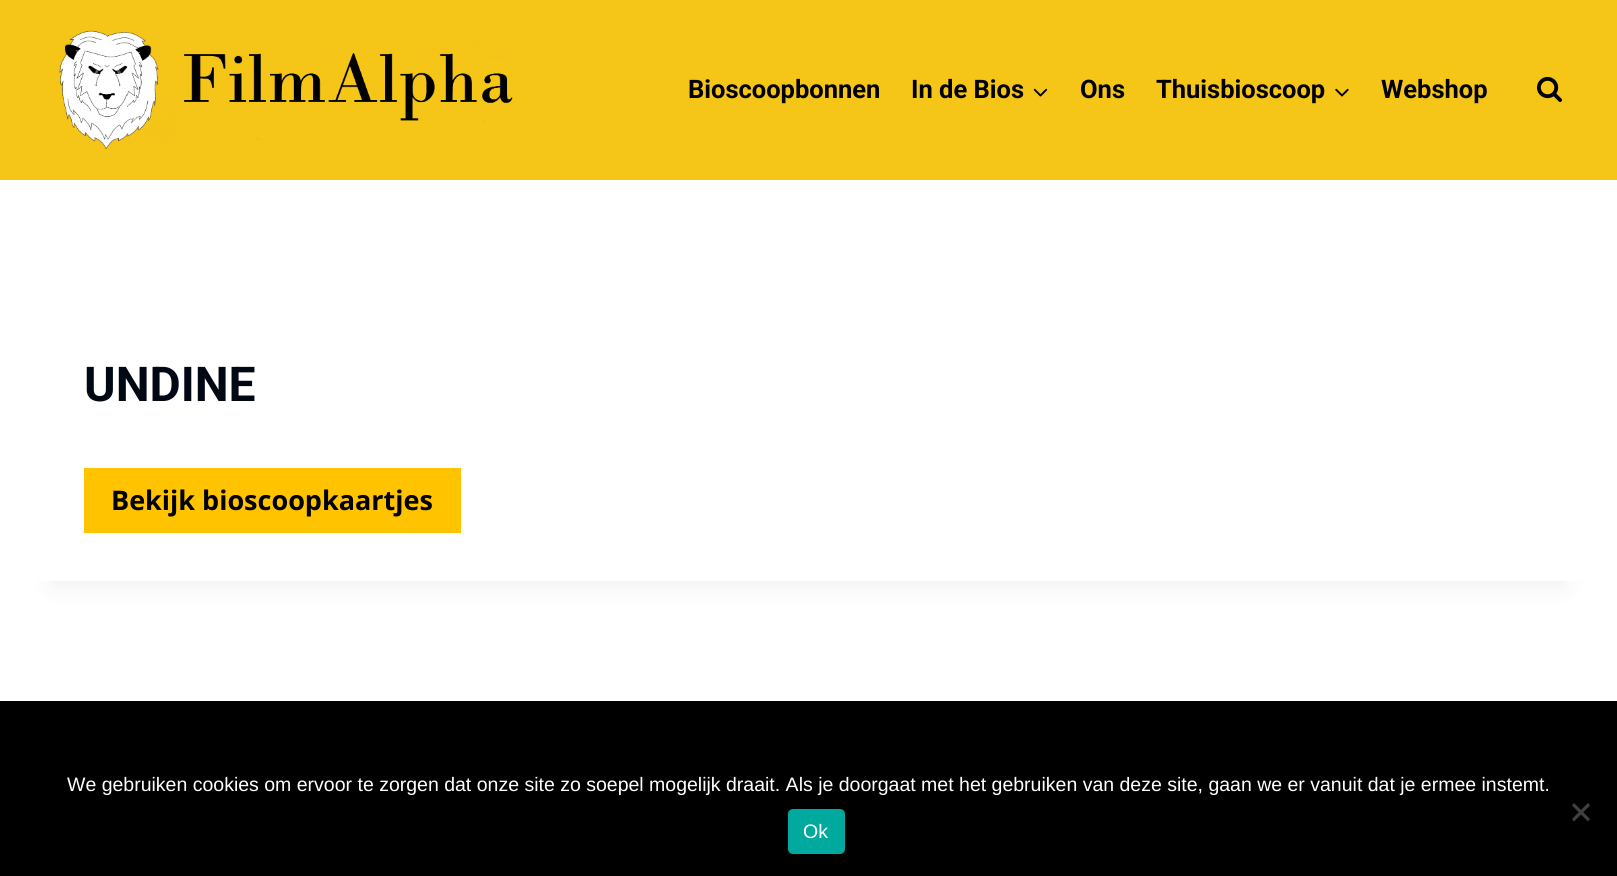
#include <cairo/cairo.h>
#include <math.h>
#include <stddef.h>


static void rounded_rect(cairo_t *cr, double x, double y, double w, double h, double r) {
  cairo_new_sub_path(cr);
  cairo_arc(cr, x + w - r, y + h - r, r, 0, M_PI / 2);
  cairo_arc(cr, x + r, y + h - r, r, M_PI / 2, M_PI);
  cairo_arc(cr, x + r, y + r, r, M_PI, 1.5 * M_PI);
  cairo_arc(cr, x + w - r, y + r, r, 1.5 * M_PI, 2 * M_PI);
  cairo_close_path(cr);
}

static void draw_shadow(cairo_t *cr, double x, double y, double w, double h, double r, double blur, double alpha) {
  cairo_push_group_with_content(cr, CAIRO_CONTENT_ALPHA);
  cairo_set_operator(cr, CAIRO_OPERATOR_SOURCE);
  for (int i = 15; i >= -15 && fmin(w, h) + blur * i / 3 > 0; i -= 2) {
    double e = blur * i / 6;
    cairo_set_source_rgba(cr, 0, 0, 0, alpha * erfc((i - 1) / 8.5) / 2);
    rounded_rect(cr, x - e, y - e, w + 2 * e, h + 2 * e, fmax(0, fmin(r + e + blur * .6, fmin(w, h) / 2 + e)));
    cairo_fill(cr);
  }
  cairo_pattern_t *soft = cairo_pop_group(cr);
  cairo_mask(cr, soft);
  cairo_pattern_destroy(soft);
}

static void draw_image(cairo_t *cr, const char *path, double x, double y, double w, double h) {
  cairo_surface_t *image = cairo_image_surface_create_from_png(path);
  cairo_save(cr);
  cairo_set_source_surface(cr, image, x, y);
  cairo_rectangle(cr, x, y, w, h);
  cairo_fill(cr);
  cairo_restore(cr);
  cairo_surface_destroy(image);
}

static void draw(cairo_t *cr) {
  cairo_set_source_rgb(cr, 1, 1, 1);
  cairo_paint(cr);
  cairo_set_source_rgb(cr, 245 / 255.0, 197 / 255.0, 24 / 255.0);
  cairo_rectangle(cr, 0, 0, 1617, 180);
  cairo_fill(cr);
  draw_image(cr, "images/1.png", 59, 30, 454, 119);
  draw_image(cr, "images/2.png", 1033, 88, 15, 9);
  draw_image(cr, "images/3.png", 1335, 88, 14, 9);
  draw_image(cr, "images/4.png", 1537, 76, 25, 26);
  cairo_set_source_rgb(cr, 0, 0, 0);
  draw_shadow(cr, 51, 338, 1515, 250, 0, 11, 0.05);
  cairo_set_source_rgb(cr, 1, 1, 1);
  rounded_rect(cr, 36, 300, 1545, 281, 6);
  cairo_fill(cr);
  cairo_set_source_rgb(cr, 1, 195 / 255.0, 0);
  cairo_rectangle(cr, 84, 468, 377, 65);
  cairo_fill(cr);
  cairo_set_source_rgb(cr, 0, 0, 0);
  cairo_rectangle(cr, 0, 701, 1617, 175);
  cairo_fill(cr);
  cairo_set_source_rgb(cr, 64 / 255.0, 64 / 255.0, 64 / 255.0);
  cairo_new_path(cr);
  cairo_move_to(cr, 1588, 803);
  cairo_line_to(cr, 1590, 805.5);
  cairo_line_to(cr, 1574, 821.5);
  cairo_line_to(cr, 1572, 819);
  cairo_close_path(cr);
  cairo_fill(cr);
  cairo_new_path(cr);
  cairo_move_to(cr, 1572, 805.5);
  cairo_line_to(cr, 1574, 803);
  cairo_line_to(cr, 1590, 819);
  cairo_line_to(cr, 1588, 821.5);
  cairo_close_path(cr);
  cairo_fill(cr);
  cairo_set_source_rgb(cr, 0, 169 / 255.0, 157 / 255.0);
  rounded_rect(cr, 788, 809, 57, 45, 5);
  cairo_fill(cr);
  cairo_select_font_face(cr, "Roboto", CAIRO_FONT_SLANT_NORMAL, CAIRO_FONT_WEIGHT_BOLD);
  cairo_set_font_size(cr, 25.5);
  cairo_set_source_rgb(cr, 0, 0, 0);
  cairo_move_to(cr, 688, 98);
  cairo_show_text(cr, "Bioscoopbonnen");
  cairo_move_to(cr, 911, 98);
  cairo_show_text(cr, "In de Bios");
  cairo_move_to(cr, 1080, 98);
  cairo_show_text(cr, "Ons");
  cairo_move_to(cr, 1156, 98);
  cairo_show_text(cr, "Thuisbioscoop");
  cairo_move_to(cr, 1381, 98);
  cairo_show_text(cr, "Webshop");
  cairo_set_font_size(cr, 48);
  cairo_set_source_rgb(cr, 0, 8 / 255.0, 20 / 255.0);
  cairo_move_to(cr, 84, 401);
  cairo_show_text(cr, "UNDINE");
  cairo_select_font_face(cr, "Open Sans", CAIRO_FONT_SLANT_NORMAL, CAIRO_FONT_WEIGHT_BOLD);
  cairo_set_font_size(cr, 27);
  cairo_set_source_rgb(cr, 0, 0, 0);
  cairo_move_to(cr, 111, 510);
  cairo_show_text(cr, "Bekijk bioscoopkaartjes");
  cairo_select_font_face(cr, "Liberation Sans", CAIRO_FONT_SLANT_NORMAL, CAIRO_FONT_WEIGHT_NORMAL);
  cairo_set_font_size(cr, 19.5);
  cairo_set_source_rgb(cr, 1, 1, 1);
  cairo_move_to(cr, 67, 791);
  cairo_show_text(cr, "We gebruiken cookies om ervoor te zorgen dat onze site zo soepel mogelijk draait. Als je doorgaat met het gebruiken van deze site, gaan we er vanuit dat je ermee instemt.");
  cairo_move_to(cr, 803, 838);
  cairo_show_text(cr, "Ok");
}

int main(void) {
  cairo_surface_t *surface = cairo_image_surface_create(CAIRO_FORMAT_RGB24, 1617, 876);
  cairo_t *cr = cairo_create(surface);
  cairo_font_options_t *options = cairo_font_options_create();
  cairo_font_options_set_hint_metrics(options, CAIRO_HINT_METRICS_OFF);
  cairo_font_options_set_hint_style(options, CAIRO_HINT_STYLE_NONE);
  cairo_set_font_options(cr, options);
  cairo_set_miter_limit(cr, 4);
  draw(cr);
  cairo_surface_write_to_png(surface, "out.png");
  cairo_font_options_destroy(options);
  cairo_destroy(cr);
  cairo_surface_destroy(surface);
  return 0;
}
